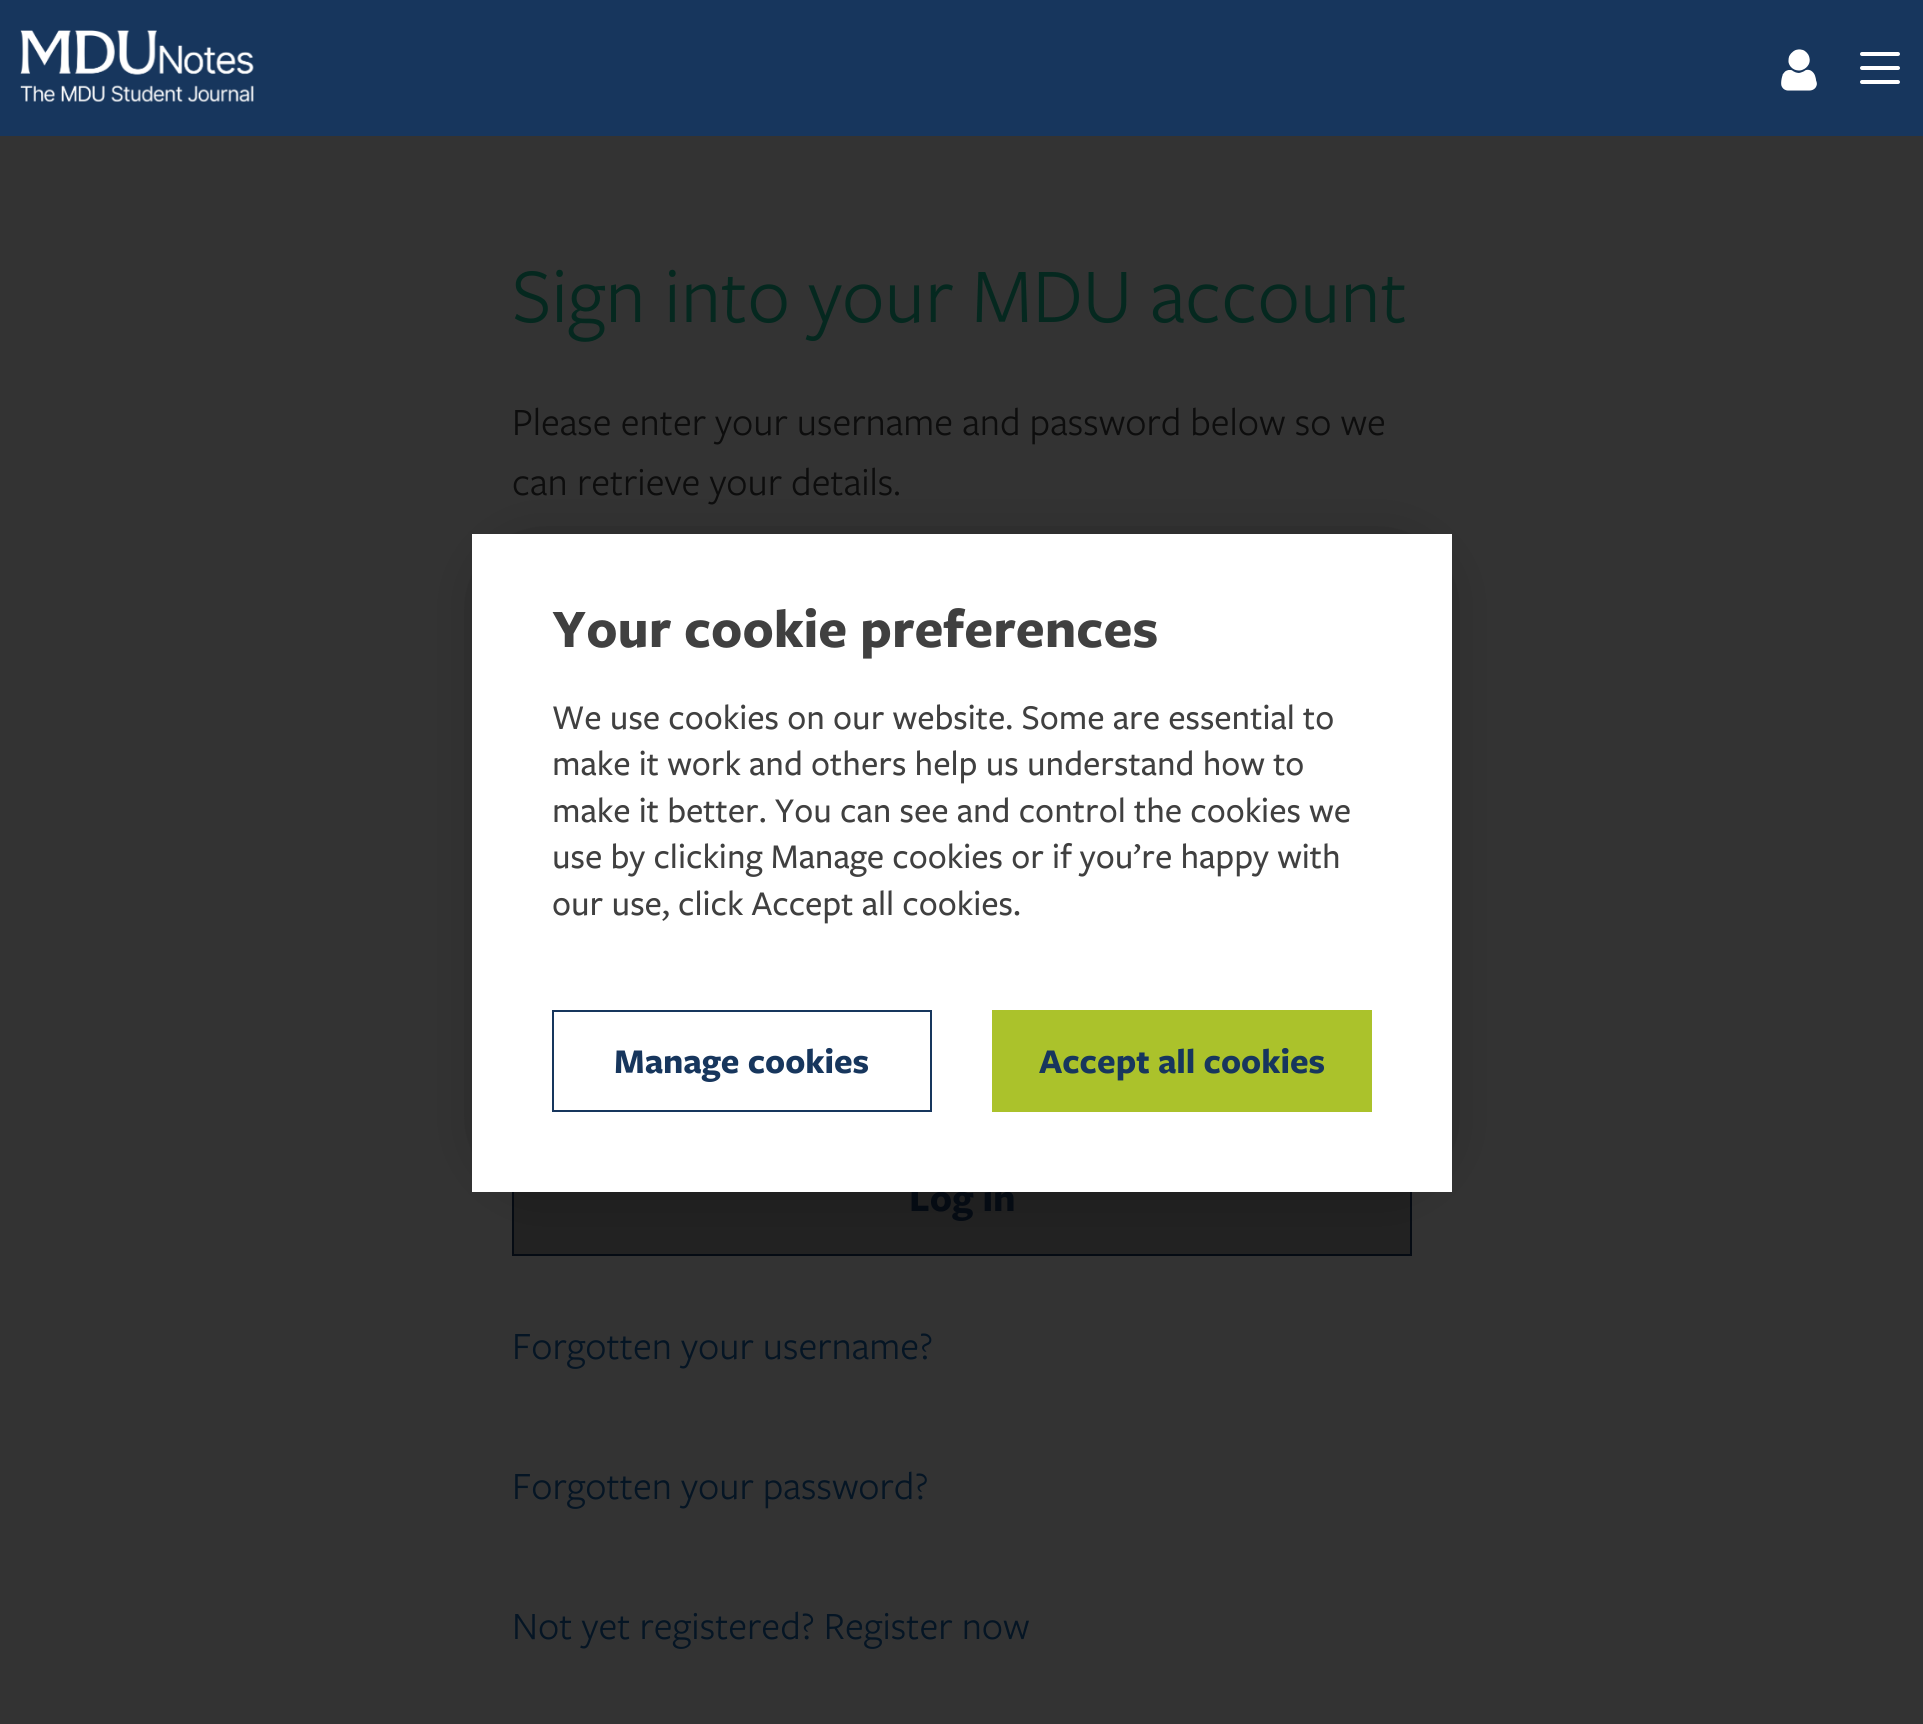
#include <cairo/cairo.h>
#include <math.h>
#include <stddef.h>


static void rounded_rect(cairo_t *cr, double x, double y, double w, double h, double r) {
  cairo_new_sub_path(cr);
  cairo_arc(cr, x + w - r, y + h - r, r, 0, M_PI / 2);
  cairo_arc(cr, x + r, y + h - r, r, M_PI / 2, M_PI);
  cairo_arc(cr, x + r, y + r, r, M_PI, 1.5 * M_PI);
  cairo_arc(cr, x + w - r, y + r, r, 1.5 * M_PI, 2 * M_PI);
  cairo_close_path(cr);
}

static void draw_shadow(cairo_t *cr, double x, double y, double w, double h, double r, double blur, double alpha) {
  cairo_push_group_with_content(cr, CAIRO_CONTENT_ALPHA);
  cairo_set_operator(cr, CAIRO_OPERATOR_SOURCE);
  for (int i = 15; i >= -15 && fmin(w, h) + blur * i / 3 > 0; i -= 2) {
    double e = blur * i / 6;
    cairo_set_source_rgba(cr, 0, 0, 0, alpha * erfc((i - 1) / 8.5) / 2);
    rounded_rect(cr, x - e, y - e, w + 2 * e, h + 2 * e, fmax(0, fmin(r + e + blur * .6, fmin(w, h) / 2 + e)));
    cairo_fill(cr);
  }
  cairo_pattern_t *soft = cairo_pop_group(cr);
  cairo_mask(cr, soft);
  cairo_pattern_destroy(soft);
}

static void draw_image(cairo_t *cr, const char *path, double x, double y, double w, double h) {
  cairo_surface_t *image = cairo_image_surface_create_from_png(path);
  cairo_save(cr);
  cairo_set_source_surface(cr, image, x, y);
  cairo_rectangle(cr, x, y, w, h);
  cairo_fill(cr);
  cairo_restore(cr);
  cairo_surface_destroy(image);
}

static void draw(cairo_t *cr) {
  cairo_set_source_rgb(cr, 51 / 255.0, 51 / 255.0, 51 / 255.0);
  cairo_paint(cr);
  cairo_set_source_rgb(cr, 23 / 255.0, 54 / 255.0, 93 / 255.0);
  cairo_rectangle(cr, 0, 0, 1923, 136);
  cairo_fill(cr);
  draw_image(cr, "images/1.png", 20, 30, 234, 72);
  draw_image(cr, "images/2.png", 1781, 49, 36, 42);
  cairo_set_source_rgb(cr, 1, 1, 1);
  rounded_rect(cr, 1860, 52, 40, 4, 2);
  cairo_fill(cr);
  rounded_rect(cr, 1860, 66, 40, 4, 2);
  cairo_fill(cr);
  rounded_rect(cr, 1860, 80, 40, 4, 2);
  cairo_fill(cr);
  cairo_set_source_rgb(cr, 34 / 255.0, 34 / 255.0, 34 / 255.0);
  cairo_rectangle(cr, 514, 1192, 896, 62);
  cairo_fill(cr);
  cairo_rectangle(cr, 513, 1141, 898, 114);
  cairo_set_source_rgb(cr, 5 / 255.0, 11 / 255.0, 19 / 255.0);
  cairo_stroke(cr);
  cairo_set_source_rgb(cr, 0, 0, 0);
  draw_shadow(cr, 524, 586, 876, 554, 0, 40, 1);
  cairo_select_font_face(cr, "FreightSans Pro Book", CAIRO_FONT_SLANT_NORMAL, CAIRO_FONT_WEIGHT_NORMAL);
  cairo_set_font_size(cr, 80);
  cairo_set_source_rgb(cr, 5 / 255.0, 40 / 255.0, 31 / 255.0);
  cairo_move_to(cr, 512, 322);
  cairo_show_text(cr, "Sign into your MDU account");
  cairo_set_font_size(cr, 40);
  cairo_set_source_rgb(cr, 13 / 255.0, 13 / 255.0, 13 / 255.0);
  cairo_move_to(cr, 512, 435);
  cairo_show_text(cr, "Please enter your username and password below so we");
  cairo_move_to(cr, 512, 495);
  cairo_show_text(cr, "can retrieve your details.");
  cairo_select_font_face(cr, "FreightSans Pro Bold", CAIRO_FONT_SLANT_NORMAL, CAIRO_FONT_WEIGHT_BOLD);
  cairo_set_source_rgb(cr, 5 / 255.0, 11 / 255.0, 19 / 255.0);
  cairo_move_to(cr, 909, 1211);
  cairo_show_text(cr, "Log in");
  cairo_select_font_face(cr, "FreightSans Pro Book", CAIRO_FONT_SLANT_NORMAL, CAIRO_FONT_WEIGHT_NORMAL);
  cairo_set_source_rgb(cr, 5 / 255.0, 21 / 255.0, 36 / 255.0);
  cairo_move_to(cr, 512, 1359);
  cairo_show_text(cr, "Forgotten your username?");
  cairo_move_to(cr, 512, 1499);
  cairo_show_text(cr, "Forgotten your password?");
  cairo_move_to(cr, 512, 1639);
  cairo_show_text(cr, "Not yet registered? Register now");
  cairo_set_source_rgb(cr, 1, 1, 1);
  cairo_rectangle(cr, 472, 534, 980, 658);
  cairo_fill(cr);
  cairo_select_font_face(cr, "FreightSans Pro Bold", CAIRO_FONT_SLANT_NORMAL, CAIRO_FONT_WEIGHT_BOLD);
  cairo_set_font_size(cr, 56);
  cairo_set_source_rgb(cr, 64 / 255.0, 64 / 255.0, 64 / 255.0);
  cairo_move_to(cr, 552, 647);
  cairo_show_text(cr, "Your cookie preferences");
  cairo_select_font_face(cr, "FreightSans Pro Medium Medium", CAIRO_FONT_SLANT_NORMAL, CAIRO_FONT_WEIGHT_NORMAL);
  cairo_set_font_size(cr, 36);
  cairo_move_to(cr, 552, 729);
  cairo_show_text(cr, "We use cookies on our website. Some are essential to");
  cairo_move_to(cr, 552, 775);
  cairo_show_text(cr, "make it work and others help us understand how to");
  cairo_move_to(cr, 552, 822);
  cairo_show_text(cr, "make it better. You can see and control the cookies we");
  cairo_move_to(cr, 552, 868);
  cairo_show_text(cr, "use by clicking Manage cookies or if you’re happy with");
  cairo_move_to(cr, 552, 915);
  cairo_show_text(cr, "our use, click Accept all cookies.");
  cairo_rectangle(cr, 553, 1011, 378, 100);
  cairo_set_source_rgb(cr, 23 / 255.0, 54 / 255.0, 93 / 255.0);
  cairo_stroke(cr);
  cairo_select_font_face(cr, "FreightSans Pro Bold", CAIRO_FONT_SLANT_NORMAL, CAIRO_FONT_WEIGHT_BOLD);
  cairo_move_to(cr, 614, 1073);
  cairo_show_text(cr, "Manage cookies");
  cairo_set_source_rgb(cr, 171 / 255.0, 194 / 255.0, 43 / 255.0);
  cairo_rectangle(cr, 992, 1010, 380, 102);
  cairo_fill(cr);
  cairo_set_source_rgb(cr, 23 / 255.0, 54 / 255.0, 93 / 255.0);
  cairo_move_to(cr, 1039, 1073);
  cairo_show_text(cr, "Accept all cookies");
}

int main(void) {
  cairo_surface_t *surface = cairo_image_surface_create(CAIRO_FORMAT_RGB24, 1923, 1724);
  cairo_t *cr = cairo_create(surface);
  cairo_font_options_t *options = cairo_font_options_create();
  cairo_font_options_set_hint_metrics(options, CAIRO_HINT_METRICS_OFF);
  cairo_font_options_set_hint_style(options, CAIRO_HINT_STYLE_NONE);
  cairo_set_font_options(cr, options);
  cairo_set_miter_limit(cr, 4);
  draw(cr);
  cairo_surface_write_to_png(surface, "out.png");
  cairo_font_options_destroy(options);
  cairo_destroy(cr);
  cairo_surface_destroy(surface);
  return 0;
}
